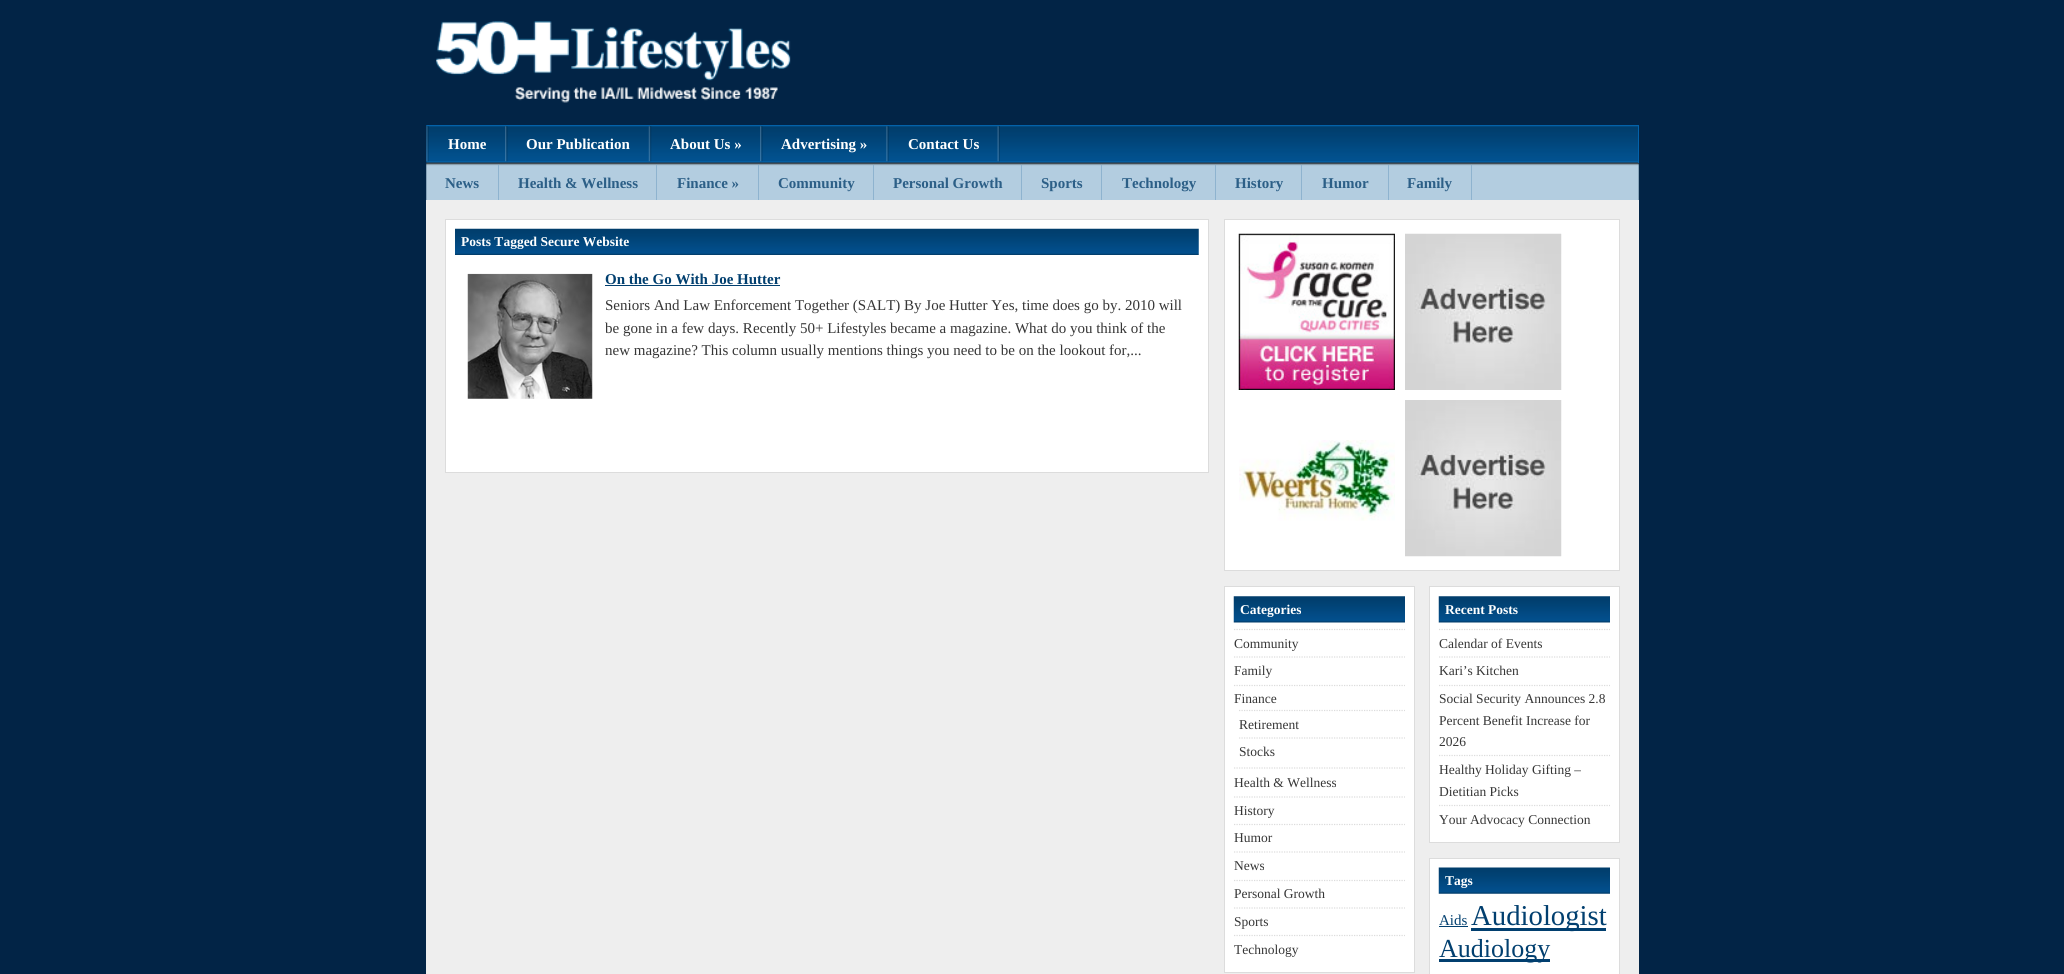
#include <cairo/cairo.h>
#include <math.h>
#include <stddef.h>


static void draw_image(cairo_t *cr, const char *path, double x, double y, double w, double h) {
  cairo_surface_t *image = cairo_image_surface_create_from_png(path);
  cairo_save(cr);
  cairo_set_source_surface(cr, image, x, y);
  cairo_rectangle(cr, x, y, w, h);
  cairo_fill(cr);
  cairo_restore(cr);
  cairo_surface_destroy(image);
}

static void draw(cairo_t *cr) {
  cairo_set_source_rgb(cr, 2 / 255.0, 36 / 255.0, 70 / 255.0);
  cairo_paint(cr);
  draw_image(cr, "images/1.png", 426, 125, 1213, 75);
  draw_image(cr, "images/2.png", 436, 21, 355, 82);
  draw_image(cr, "images/3.png", 426, 126, 3, 36);
  cairo_set_source_rgb(cr, 4 / 255.0, 98 / 255.0, 169 / 255.0);
  cairo_rectangle(cr, 1638, 125, 1, 38);
  cairo_fill(cr);
  draw_image(cr, "images/4.png", 505, 126, 3, 36);
  draw_image(cr, "images/5.png", 648, 126, 4, 36);
  draw_image(cr, "images/4.png", 760, 126, 3, 36);
  draw_image(cr, "images/6.png", 886, 126, 3, 36);
  draw_image(cr, "images/7.png", 997, 126, 3, 36);
  cairo_set_source_rgb(cr, 142 / 255.0, 179 / 255.0, 207 / 255.0);
  cairo_rectangle(cr, 498, 165, 1, 35);
  cairo_fill(cr);
  cairo_rectangle(cr, 656, 165, 1, 35);
  cairo_fill(cr);
  cairo_rectangle(cr, 758, 165, 1, 35);
  cairo_fill(cr);
  cairo_rectangle(cr, 873, 165, 1, 35);
  cairo_fill(cr);
  cairo_rectangle(cr, 1021, 165, 1, 35);
  cairo_fill(cr);
  cairo_rectangle(cr, 1101, 165, 1, 35);
  cairo_fill(cr);
  cairo_rectangle(cr, 1215, 165, 1, 35);
  cairo_fill(cr);
  cairo_rectangle(cr, 1301, 165, 1, 35);
  cairo_fill(cr);
  cairo_rectangle(cr, 1388, 165, 1, 35);
  cairo_fill(cr);
  cairo_rectangle(cr, 1471, 165, 1, 35);
  cairo_fill(cr);
  cairo_set_source_rgb(cr, 238 / 255.0, 238 / 255.0, 238 / 255.0);
  cairo_rectangle(cr, 426, 200, 1213, 774);
  cairo_fill(cr);
  cairo_set_source_rgb(cr, 1, 1, 1);
  cairo_rectangle(cr, 445.5, 219.5, 763, 253);
  cairo_fill_preserve(cr);
  cairo_set_source_rgb(cr, 220 / 255.0, 220 / 255.0, 220 / 255.0);
  cairo_set_line_width(cr, 1);
  cairo_stroke(cr);
  draw_image(cr, "images/8.png", 455, 228, 744, 27);
  draw_image(cr, "images/9.png", 467, 273, 126, 126);
  cairo_set_source_rgb(cr, 1 / 255.0, 63 / 255.0, 111 / 255.0);
  cairo_rectangle(cr, 605, 285, 175, 1);
  cairo_fill(cr);
  cairo_set_source_rgb(cr, 1, 1, 1);
  cairo_rectangle(cr, 1224.5, 219.5, 395, 351);
  cairo_fill_preserve(cr);
  cairo_set_source_rgb(cr, 220 / 255.0, 220 / 255.0, 220 / 255.0);
  cairo_stroke(cr);
  draw_image(cr, "images/10.png", 1238, 233, 157, 157);
  draw_image(cr, "images/11.png", 1405, 233, 157, 157);
  draw_image(cr, "images/12.png", 1239, 440, 156, 81);
  draw_image(cr, "images/13.png", 1405, 400, 157, 157);
  cairo_set_source_rgb(cr, 1, 1, 1);
  cairo_rectangle(cr, 1224.5, 586.5, 190, 386);
  cairo_fill_preserve(cr);
  cairo_set_source_rgb(cr, 220 / 255.0, 220 / 255.0, 220 / 255.0);
  cairo_stroke(cr);
  draw_image(cr, "images/14.png", 1233, 596, 172, 27);
  cairo_new_path(cr);
  cairo_move_to(cr, 1234, 629.5);
  cairo_line_to(cr, 1405, 629.5);
  cairo_set_line_width(cr, 1.2);
  cairo_set_dash(cr, (double[]){1.25, 1.25}, 2, 0);
  cairo_stroke(cr);
  cairo_new_path(cr);
  cairo_move_to(cr, 1234, 657);
  cairo_line_to(cr, 1405, 657);
  cairo_stroke(cr);
  cairo_new_path(cr);
  cairo_move_to(cr, 1234, 685.5);
  cairo_line_to(cr, 1405, 685.5);
  cairo_stroke(cr);
  cairo_new_path(cr);
  cairo_move_to(cr, 1239, 710.5);
  cairo_line_to(cr, 1405, 710.5);
  cairo_stroke(cr);
  cairo_new_path(cr);
  cairo_move_to(cr, 1239, 738);
  cairo_line_to(cr, 1405, 738);
  cairo_stroke(cr);
  cairo_new_path(cr);
  cairo_move_to(cr, 1234, 768);
  cairo_line_to(cr, 1405, 768);
  cairo_stroke(cr);
  cairo_new_path(cr);
  cairo_move_to(cr, 1234, 797);
  cairo_line_to(cr, 1405, 797);
  cairo_stroke(cr);
  cairo_new_path(cr);
  cairo_move_to(cr, 1234, 824.5);
  cairo_line_to(cr, 1405, 824.5);
  cairo_stroke(cr);
  cairo_new_path(cr);
  cairo_move_to(cr, 1234, 852);
  cairo_line_to(cr, 1405, 852);
  cairo_stroke(cr);
  cairo_new_path(cr);
  cairo_move_to(cr, 1234, 880.5);
  cairo_line_to(cr, 1405, 880.5);
  cairo_stroke(cr);
  cairo_new_path(cr);
  cairo_move_to(cr, 1234, 908);
  cairo_line_to(cr, 1405, 908);
  cairo_stroke(cr);
  cairo_new_path(cr);
  cairo_move_to(cr, 1234, 935.5);
  cairo_line_to(cr, 1405, 935.5);
  cairo_stroke(cr);
  cairo_set_source_rgb(cr, 1, 1, 1);
  cairo_rectangle(cr, 1429.5, 586.5, 190, 256);
  cairo_fill_preserve(cr);
  cairo_set_source_rgb(cr, 220 / 255.0, 220 / 255.0, 220 / 255.0);
  cairo_set_line_width(cr, 1);
  cairo_set_dash(cr, NULL, 0, 0);
  cairo_stroke(cr);
  draw_image(cr, "images/14.png", 1438, 596, 172, 27);
  cairo_new_path(cr);
  cairo_move_to(cr, 1439, 629.5);
  cairo_line_to(cr, 1610, 629.5);
  cairo_set_line_width(cr, 1.2);
  cairo_set_dash(cr, (double[]){1.25, 1.25}, 2, 0);
  cairo_stroke(cr);
  cairo_new_path(cr);
  cairo_move_to(cr, 1439, 657);
  cairo_line_to(cr, 1610, 657);
  cairo_stroke(cr);
  cairo_new_path(cr);
  cairo_move_to(cr, 1439, 685.5);
  cairo_line_to(cr, 1610, 685.5);
  cairo_stroke(cr);
  cairo_new_path(cr);
  cairo_move_to(cr, 1439, 755.5);
  cairo_line_to(cr, 1610, 755.5);
  cairo_stroke(cr);
  cairo_new_path(cr);
  cairo_move_to(cr, 1439, 805.5);
  cairo_line_to(cr, 1610, 805.5);
  cairo_stroke(cr);
  cairo_set_source_rgb(cr, 1, 1, 1);
  cairo_rectangle(cr, 1429.5, 858.5, 190, 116);
  cairo_fill_preserve(cr);
  cairo_set_source_rgb(cr, 220 / 255.0, 220 / 255.0, 220 / 255.0);
  cairo_set_line_width(cr, 1);
  cairo_set_dash(cr, NULL, 0, 0);
  cairo_stroke(cr);
  draw_image(cr, "images/15.png", 1438, 867, 172, 27);
  cairo_set_source_rgb(cr, 1 / 255.0, 63 / 255.0, 111 / 255.0);
  cairo_rectangle(cr, 1439, 926, 29, 1);
  cairo_fill(cr);
  cairo_rectangle(cr, 1471, 928, 135, 3);
  cairo_fill(cr);
  cairo_rectangle(cr, 1439, 959, 111, 3);
  cairo_fill(cr);
  cairo_select_font_face(cr, "Liberation Serif", CAIRO_FONT_SLANT_NORMAL, CAIRO_FONT_WEIGHT_BOLD);
  cairo_set_font_size(cr, 15);
  cairo_set_source_rgb(cr, 1, 1, 1);
  cairo_move_to(cr, 448, 149);
  cairo_show_text(cr, "Home");
  cairo_move_to(cr, 526, 149);
  cairo_show_text(cr, "Our Publication");
  cairo_move_to(cr, 670, 149);
  cairo_show_text(cr, "About Us »");
  cairo_move_to(cr, 781, 149);
  cairo_show_text(cr, "Advertising »");
  cairo_move_to(cr, 908, 149);
  cairo_show_text(cr, "Contact Us");
  cairo_set_source_rgb(cr, 44 / 255.0, 95 / 255.0, 135 / 255.0);
  cairo_move_to(cr, 445, 188);
  cairo_show_text(cr, "News");
  cairo_move_to(cr, 518, 188);
  cairo_show_text(cr, "Health & Wellness");
  cairo_move_to(cr, 677, 188);
  cairo_show_text(cr, "Finance »");
  cairo_move_to(cr, 778, 188);
  cairo_show_text(cr, "Community");
  cairo_move_to(cr, 893, 188);
  cairo_show_text(cr, "Personal Growth");
  cairo_move_to(cr, 1041, 188);
  cairo_show_text(cr, "Sports");
  cairo_move_to(cr, 1122, 188);
  cairo_show_text(cr, "Technology");
  cairo_move_to(cr, 1235, 188);
  cairo_show_text(cr, "History");
  cairo_move_to(cr, 1322, 188);
  cairo_show_text(cr, "Humor");
  cairo_move_to(cr, 1407, 188);
  cairo_show_text(cr, "Family");
  cairo_set_font_size(cr, 13.5);
  cairo_set_source_rgb(cr, 1, 1, 1);
  cairo_move_to(cr, 461, 246);
  cairo_show_text(cr, "Posts Tagged Secure Website");
  cairo_set_font_size(cr, 15);
  cairo_set_source_rgb(cr, 1 / 255.0, 63 / 255.0, 111 / 255.0);
  cairo_move_to(cr, 605, 284);
  cairo_show_text(cr, "On the Go With Joe Hutter");
  cairo_select_font_face(cr, "Liberation Serif", CAIRO_FONT_SLANT_NORMAL, CAIRO_FONT_WEIGHT_NORMAL);
  cairo_set_source_rgb(cr, 54 / 255.0, 54 / 255.0, 54 / 255.0);
  cairo_move_to(cr, 605, 310);
  cairo_show_text(cr, "Seniors And Law Enforcement Together (SALT) By Joe Hutter Yes, time does go by. 2010 will");
  cairo_move_to(cr, 605, 333);
  cairo_show_text(cr, "be gone in a few days. Recently 50+ Lifestyles became a magazine. What do you think of the");
  cairo_move_to(cr, 605, 355);
  cairo_show_text(cr, "new magazine? This column usually mentions things you need to be on the lookout for,...");
  cairo_select_font_face(cr, "Liberation Serif", CAIRO_FONT_SLANT_NORMAL, CAIRO_FONT_WEIGHT_BOLD);
  cairo_set_font_size(cr, 13.5);
  cairo_set_source_rgb(cr, 1, 1, 1);
  cairo_move_to(cr, 1240, 614);
  cairo_show_text(cr, "Categories");
  cairo_select_font_face(cr, "Liberation Serif", CAIRO_FONT_SLANT_NORMAL, CAIRO_FONT_WEIGHT_NORMAL);
  cairo_set_source_rgb(cr, 54 / 255.0, 54 / 255.0, 54 / 255.0);
  cairo_move_to(cr, 1234, 648);
  cairo_show_text(cr, "Community");
  cairo_move_to(cr, 1234, 675);
  cairo_show_text(cr, "Family");
  cairo_move_to(cr, 1234, 703);
  cairo_show_text(cr, "Finance");
  cairo_move_to(cr, 1239, 729);
  cairo_show_text(cr, "Retirement");
  cairo_move_to(cr, 1239, 756);
  cairo_show_text(cr, "Stocks");
  cairo_move_to(cr, 1234, 787);
  cairo_show_text(cr, "Health & Wellness");
  cairo_move_to(cr, 1234, 815);
  cairo_show_text(cr, "History");
  cairo_move_to(cr, 1234, 842);
  cairo_show_text(cr, "Humor");
  cairo_move_to(cr, 1234, 870);
  cairo_show_text(cr, "News");
  cairo_move_to(cr, 1234, 898);
  cairo_show_text(cr, "Personal Growth");
  cairo_move_to(cr, 1234, 926);
  cairo_show_text(cr, "Sports");
  cairo_move_to(cr, 1234, 954);
  cairo_show_text(cr, "Technology");
  cairo_select_font_face(cr, "Liberation Serif", CAIRO_FONT_SLANT_NORMAL, CAIRO_FONT_WEIGHT_BOLD);
  cairo_set_source_rgb(cr, 1, 1, 1);
  cairo_move_to(cr, 1445, 614);
  cairo_show_text(cr, "Recent Posts");
  cairo_select_font_face(cr, "Liberation Serif", CAIRO_FONT_SLANT_NORMAL, CAIRO_FONT_WEIGHT_NORMAL);
  cairo_set_source_rgb(cr, 54 / 255.0, 54 / 255.0, 54 / 255.0);
  cairo_move_to(cr, 1439, 648);
  cairo_show_text(cr, "Calendar of Events");
  cairo_move_to(cr, 1439, 675);
  cairo_show_text(cr, "Kari’s Kitchen");
  cairo_move_to(cr, 1439, 703);
  cairo_show_text(cr, "Social Security Announces 2.8");
  cairo_move_to(cr, 1439, 725);
  cairo_show_text(cr, "Percent Benefit Increase for");
  cairo_move_to(cr, 1439, 746);
  cairo_show_text(cr, "2026");
  cairo_move_to(cr, 1439, 774);
  cairo_show_text(cr, "Healthy Holiday Gifting –");
  cairo_move_to(cr, 1439, 796);
  cairo_show_text(cr, "Dietitian Picks");
  cairo_move_to(cr, 1439, 824);
  cairo_show_text(cr, "Your Advocacy Connection");
  cairo_select_font_face(cr, "Liberation Serif", CAIRO_FONT_SLANT_NORMAL, CAIRO_FONT_WEIGHT_BOLD);
  cairo_set_source_rgb(cr, 1, 1, 1);
  cairo_move_to(cr, 1445, 885);
  cairo_show_text(cr, "Tags");
  cairo_select_font_face(cr, "Liberation Serif", CAIRO_FONT_SLANT_NORMAL, CAIRO_FONT_WEIGHT_NORMAL);
  cairo_set_font_size(cr, 15);
  cairo_set_source_rgb(cr, 1 / 255.0, 63 / 255.0, 111 / 255.0);
  cairo_move_to(cr, 1439, 925);
  cairo_show_text(cr, "Aids");
  cairo_set_font_size(cr, 28.75);
  cairo_move_to(cr, 1471, 925);
  cairo_show_text(cr, "Audiologist");
  cairo_set_font_size(cr, 26);
  cairo_move_to(cr, 1439, 957);
  cairo_show_text(cr, "Audiology");
}

int main(void) {
  cairo_surface_t *surface = cairo_image_surface_create(CAIRO_FORMAT_RGB24, 2064, 974);
  cairo_t *cr = cairo_create(surface);
  cairo_font_options_t *options = cairo_font_options_create();
  cairo_font_options_set_hint_metrics(options, CAIRO_HINT_METRICS_OFF);
  cairo_font_options_set_hint_style(options, CAIRO_HINT_STYLE_NONE);
  cairo_set_font_options(cr, options);
  cairo_set_miter_limit(cr, 4);
  draw(cr);
  cairo_surface_write_to_png(surface, "out.png");
  cairo_font_options_destroy(options);
  cairo_destroy(cr);
  cairo_surface_destroy(surface);
  return 0;
}
